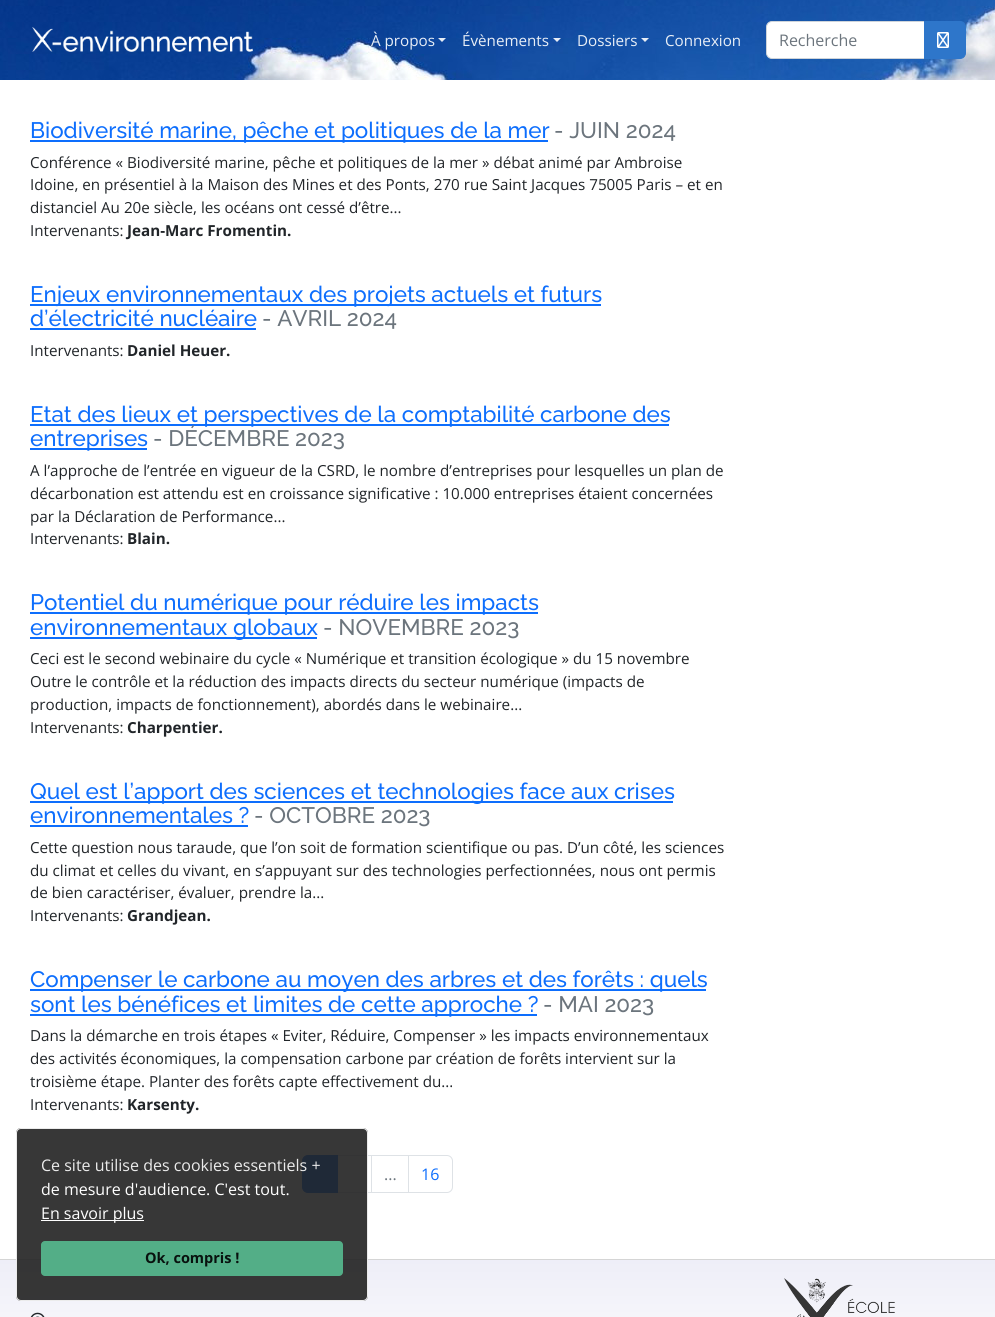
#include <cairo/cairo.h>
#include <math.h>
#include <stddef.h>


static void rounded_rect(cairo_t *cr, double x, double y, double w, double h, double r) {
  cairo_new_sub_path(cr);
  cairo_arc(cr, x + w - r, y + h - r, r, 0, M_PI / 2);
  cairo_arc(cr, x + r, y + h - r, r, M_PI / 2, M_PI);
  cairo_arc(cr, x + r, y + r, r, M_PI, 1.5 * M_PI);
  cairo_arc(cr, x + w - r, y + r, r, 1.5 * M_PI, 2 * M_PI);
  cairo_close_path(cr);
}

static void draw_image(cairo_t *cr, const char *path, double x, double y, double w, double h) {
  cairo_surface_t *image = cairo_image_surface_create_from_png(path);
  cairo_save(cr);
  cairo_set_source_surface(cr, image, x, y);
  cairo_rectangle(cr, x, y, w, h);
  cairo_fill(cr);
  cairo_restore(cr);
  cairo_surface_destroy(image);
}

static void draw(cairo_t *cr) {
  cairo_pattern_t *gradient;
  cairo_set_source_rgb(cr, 1, 1, 1);
  cairo_paint(cr);
  draw_image(cr, "images/1.png", 0, 0, 995, 80);
  draw_image(cr, "images/2.png", 32, 27, 221, 25);
  cairo_set_source_rgba(cr, 1, 1, 1, 0.9);
  cairo_new_path(cr);
  cairo_move_to(cr, 438, 38);
  cairo_line_to(cr, 446, 38);
  cairo_line_to(cr, 442, 42);
  cairo_close_path(cr);
  cairo_fill(cr);
  cairo_set_source_rgb(cr, 232 / 255.0, 237 / 255.0, 246 / 255.0);
  cairo_new_path(cr);
  cairo_move_to(cr, 553, 38);
  cairo_line_to(cr, 561, 38);
  cairo_line_to(cr, 557, 42);
  cairo_close_path(cr);
  cairo_fill(cr);
  cairo_set_source_rgb(cr, 232 / 255.0, 238 / 255.0, 246 / 255.0);
  cairo_new_path(cr);
  cairo_move_to(cr, 641, 38);
  cairo_line_to(cr, 649, 38);
  cairo_line_to(cr, 645, 42);
  cairo_close_path(cr);
  cairo_fill(cr);
  cairo_set_source_rgb(cr, 1, 1, 1);
  cairo_new_path(cr);
  cairo_move_to(cr, 772, 21.5);
  cairo_line_to(cr, 924.5, 21.5);
  cairo_line_to(cr, 924.5, 58.5);
  cairo_line_to(cr, 772, 58.5);
  cairo_curve_to(cr, 769, 58.5, 766.5, 56, 766.5, 53);
  cairo_line_to(cr, 766.5, 27);
  cairo_curve_to(cr, 766.5, 24, 769, 21.5, 772, 21.5);
  cairo_close_path(cr);
  cairo_fill_preserve(cr);
  cairo_set_source_rgb(cr, 206 / 255.0, 212 / 255.0, 218 / 255.0);
  cairo_set_line_width(cr, 1);
  cairo_stroke(cr);
  cairo_set_source_rgb(cr, 46 / 255.0, 118 / 255.0, 202 / 255.0);
  cairo_new_path(cr);
  cairo_move_to(cr, 924.5, 21.5);
  cairo_line_to(cr, 960, 21.5);
  cairo_curve_to(cr, 963, 21.5, 965.5, 24, 965.5, 27);
  cairo_line_to(cr, 965.5, 53);
  cairo_curve_to(cr, 965.5, 56, 963, 58.5, 960, 58.5);
  cairo_line_to(cr, 924.5, 58.5);
  cairo_close_path(cr);
  cairo_fill_preserve(cr);
  cairo_stroke(cr);
  draw_image(cr, "images/3.png", 937, 32, 12, 16);
  cairo_set_source_rgb(cr, 13 / 255.0, 110 / 255.0, 253 / 255.0);
  cairo_rectangle(cr, 30, 140, 518, 2);
  cairo_fill(cr);
  cairo_rectangle(cr, 30, 304, 571, 2);
  cairo_fill(cr);
  cairo_rectangle(cr, 30, 328, 226, 2);
  cairo_fill(cr);
  cairo_rectangle(cr, 30, 424, 639, 2);
  cairo_fill(cr);
  cairo_rectangle(cr, 30, 448, 117, 2);
  cairo_fill(cr);
  cairo_rectangle(cr, 30, 612, 508, 2);
  cairo_fill(cr);
  cairo_rectangle(cr, 30, 637, 287, 2);
  cairo_fill(cr);
  cairo_rectangle(cr, 30, 801, 643, 2);
  cairo_fill(cr);
  cairo_rectangle(cr, 30, 825, 218, 2);
  cairo_fill(cr);
  cairo_rectangle(cr, 30, 989, 676, 2);
  cairo_fill(cr);
  cairo_rectangle(cr, 30, 1014, 507, 2);
  cairo_fill(cr);
  cairo_rectangle(cr, 337.5, 1155.5, 34, 37);
  cairo_set_source_rgb(cr, 222 / 255.0, 226 / 255.0, 230 / 255.0);
  cairo_stroke(cr);
  cairo_set_source_rgb(cr, 13 / 255.0, 110 / 255.0, 253 / 255.0);
  cairo_new_path(cr);
  cairo_move_to(cr, 308, 1155.5);
  cairo_line_to(cr, 337.5, 1155.5);
  cairo_line_to(cr, 337.5, 1192.5);
  cairo_line_to(cr, 308, 1192.5);
  cairo_curve_to(cr, 305, 1192.5, 302.5, 1190, 302.5, 1187);
  cairo_line_to(cr, 302.5, 1161);
  cairo_curve_to(cr, 302.5, 1158, 305, 1155.5, 308, 1155.5);
  cairo_close_path(cr);
  cairo_fill_preserve(cr);
  cairo_stroke(cr);
  cairo_rectangle(cr, 371.5, 1155.5, 37, 37);
  cairo_set_source_rgb(cr, 222 / 255.0, 226 / 255.0, 230 / 255.0);
  cairo_stroke(cr);
  cairo_set_source_rgb(cr, 1, 1, 1);
  cairo_new_path(cr);
  cairo_move_to(cr, 408.5, 1155.5);
  cairo_line_to(cr, 447, 1155.5);
  cairo_curve_to(cr, 450, 1155.5, 452.5, 1158, 452.5, 1161);
  cairo_line_to(cr, 452.5, 1187);
  cairo_curve_to(cr, 452.5, 1190, 450, 1192.5, 447, 1192.5);
  cairo_line_to(cr, 408.5, 1192.5);
  cairo_close_path(cr);
  cairo_fill_preserve(cr);
  cairo_set_source_rgb(cr, 222 / 255.0, 226 / 255.0, 230 / 255.0);
  cairo_stroke(cr);
  gradient = cairo_pattern_create_linear(498, 1260, 498, 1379);
  cairo_pattern_add_color_stop_rgba(gradient, 0, 238 / 255.0, 238 / 255.0, 248 / 255.0, 1);
  cairo_pattern_add_color_stop_rgba(gradient, 1, 253 / 255.0, 253 / 255.0, 253 / 255.0, 1);
  cairo_set_source(cr, gradient);
  cairo_pattern_destroy(gradient);
  cairo_rectangle(cr, 0, 1260, 995, 57);
  cairo_fill(cr);
  cairo_set_source_rgb(cr, 213 / 255.0, 213 / 255.0, 213 / 255.0);
  cairo_rectangle(cr, 0, 1259, 995, 1);
  cairo_fill(cr);
  cairo_set_source_rgba(cr, 34 / 255.0, 34 / 255.0, 34 / 255.0, 0.9);
  rounded_rect(cr, 16, 1128, 352, 173, 5);
  cairo_fill(cr);
  rounded_rect(cr, 16.5, 1128.5, 351, 172, 4.5);
  cairo_set_source_rgba(cr, 1, 1, 1, 0.9);
  cairo_stroke(cr);
  cairo_set_source_rgb(cr, 1, 1, 1);
  cairo_rectangle(cr, 41, 1220, 103, 1);
  cairo_fill(cr);
  cairo_set_source_rgba(cr, 87 / 255.0, 188 / 255.0, 144 / 255.0, 0.9);
  rounded_rect(cr, 41, 1241, 302, 35, 4);
  cairo_fill(cr);
  draw_image(cr, "images/4.png", 784, 1278, 111, 39);
  draw_image(cr, "images/5.png", 30, 1312, 15, 5);
  cairo_select_font_face(cr, "Open Sans", CAIRO_FONT_SLANT_NORMAL, CAIRO_FONT_WEIGHT_NORMAL);
  cairo_set_font_size(cr, 15.2);
  cairo_set_source_rgb(cr, 232 / 255.0, 238 / 255.0, 246 / 255.0);
  cairo_move_to(cr, 371, 46);
  cairo_show_text(cr, "À propos");
  cairo_move_to(cr, 462, 46);
  cairo_show_text(cr, "Évènements");
  cairo_move_to(cr, 577, 46);
  cairo_show_text(cr, "Dossiers");
  cairo_move_to(cr, 665, 46);
  cairo_show_text(cr, "Connexion");
  cairo_set_font_size(cr, 16);
  cairo_set_source_rgb(cr, 108 / 255.0, 117 / 255.0, 125 / 255.0);
  cairo_move_to(cr, 779, 46);
  cairo_show_text(cr, "Recherche");
  cairo_select_font_face(cr, "Raleway Thin", CAIRO_FONT_SLANT_NORMAL, CAIRO_FONT_WEIGHT_NORMAL);
  cairo_set_font_size(cr, 22.4);
  cairo_set_source_rgb(cr, 13 / 255.0, 110 / 255.0, 253 / 255.0);
  cairo_move_to(cr, 30, 138);
  cairo_show_text(cr, "Biodiversité marine, pêche et politiques de la mer");
  cairo_set_source_rgb(cr, 108 / 255.0, 117 / 255.0, 125 / 255.0);
  cairo_move_to(cr, 554, 138);
  cairo_show_text(cr, "- JUIN 2024");
  cairo_select_font_face(cr, "Open Sans", CAIRO_FONT_SLANT_NORMAL, CAIRO_FONT_WEIGHT_NORMAL);
  cairo_set_font_size(cr, 15.2);
  cairo_set_source_rgb(cr, 33 / 255.0, 37 / 255.0, 41 / 255.0);
  cairo_move_to(cr, 30, 168);
  cairo_show_text(cr, "Conférence « Biodiversité marine, pêche et politiques de la mer » débat animé par Ambroise");
  cairo_move_to(cr, 30, 190);
  cairo_show_text(cr, "Idoine, en présentiel à la Maison des Mines et des Ponts, 270 rue Saint Jacques 75005 Paris – et en");
  cairo_move_to(cr, 30, 213);
  cairo_show_text(cr, "distanciel Au 20e siècle, les océans ont cessé d’être...");
  cairo_move_to(cr, 30, 236);
  cairo_show_text(cr, "Intervenants:");
  cairo_select_font_face(cr, "Open Sans", CAIRO_FONT_SLANT_NORMAL, CAIRO_FONT_WEIGHT_BOLD);
  cairo_move_to(cr, 127, 236);
  cairo_show_text(cr, "Jean-Marc Fromentin.");
  cairo_select_font_face(cr, "Raleway Thin", CAIRO_FONT_SLANT_NORMAL, CAIRO_FONT_WEIGHT_NORMAL);
  cairo_set_font_size(cr, 22.4);
  cairo_set_source_rgb(cr, 13 / 255.0, 110 / 255.0, 253 / 255.0);
  cairo_move_to(cr, 30, 302);
  cairo_show_text(cr, "Enjeux environnementaux des projets actuels et futurs");
  cairo_move_to(cr, 30, 326);
  cairo_show_text(cr, "d’électricité nucléaire");
  cairo_set_source_rgb(cr, 108 / 255.0, 117 / 255.0, 125 / 255.0);
  cairo_move_to(cr, 262, 326);
  cairo_show_text(cr, "- AVRIL 2024");
  cairo_select_font_face(cr, "Open Sans", CAIRO_FONT_SLANT_NORMAL, CAIRO_FONT_WEIGHT_NORMAL);
  cairo_set_font_size(cr, 15.2);
  cairo_set_source_rgb(cr, 33 / 255.0, 37 / 255.0, 41 / 255.0);
  cairo_move_to(cr, 30, 356);
  cairo_show_text(cr, "Intervenants:");
  cairo_select_font_face(cr, "Open Sans", CAIRO_FONT_SLANT_NORMAL, CAIRO_FONT_WEIGHT_BOLD);
  cairo_move_to(cr, 127, 356);
  cairo_show_text(cr, "Daniel Heuer.");
  cairo_select_font_face(cr, "Raleway Thin", CAIRO_FONT_SLANT_NORMAL, CAIRO_FONT_WEIGHT_NORMAL);
  cairo_set_font_size(cr, 22.4);
  cairo_set_source_rgb(cr, 13 / 255.0, 110 / 255.0, 253 / 255.0);
  cairo_move_to(cr, 30, 422);
  cairo_show_text(cr, "Etat des lieux et perspectives de la comptabilité carbone des");
  cairo_move_to(cr, 30, 446);
  cairo_show_text(cr, "entreprises");
  cairo_set_source_rgb(cr, 108 / 255.0, 117 / 255.0, 125 / 255.0);
  cairo_move_to(cr, 153, 446);
  cairo_show_text(cr, "- DÉCEMBRE 2023");
  cairo_select_font_face(cr, "Open Sans", CAIRO_FONT_SLANT_NORMAL, CAIRO_FONT_WEIGHT_NORMAL);
  cairo_set_font_size(cr, 15.2);
  cairo_set_source_rgb(cr, 33 / 255.0, 37 / 255.0, 41 / 255.0);
  cairo_move_to(cr, 30, 476);
  cairo_show_text(cr, "A l’approche de l’entrée en vigueur de la CSRD, le nombre d’entreprises pour lesquelles un plan de");
  cairo_move_to(cr, 30, 499);
  cairo_show_text(cr, "décarbonation est attendu est en croissance significative : 10.000 entreprises étaient concernées");
  cairo_move_to(cr, 30, 522);
  cairo_show_text(cr, "par la Déclaration de Performance...");
  cairo_move_to(cr, 30, 544);
  cairo_show_text(cr, "Intervenants:");
  cairo_select_font_face(cr, "Open Sans", CAIRO_FONT_SLANT_NORMAL, CAIRO_FONT_WEIGHT_BOLD);
  cairo_move_to(cr, 127, 544);
  cairo_show_text(cr, "Blain.");
  cairo_select_font_face(cr, "Raleway Thin", CAIRO_FONT_SLANT_NORMAL, CAIRO_FONT_WEIGHT_NORMAL);
  cairo_set_font_size(cr, 22.4);
  cairo_set_source_rgb(cr, 13 / 255.0, 110 / 255.0, 253 / 255.0);
  cairo_move_to(cr, 30, 610);
  cairo_show_text(cr, "Potentiel du numérique pour réduire les impacts");
  cairo_move_to(cr, 30, 635);
  cairo_show_text(cr, "environnementaux globaux");
  cairo_set_source_rgb(cr, 108 / 255.0, 117 / 255.0, 125 / 255.0);
  cairo_move_to(cr, 323, 635);
  cairo_show_text(cr, "- NOVEMBRE 2023");
  cairo_select_font_face(cr, "Open Sans", CAIRO_FONT_SLANT_NORMAL, CAIRO_FONT_WEIGHT_NORMAL);
  cairo_set_font_size(cr, 15.2);
  cairo_set_source_rgb(cr, 33 / 255.0, 37 / 255.0, 41 / 255.0);
  cairo_move_to(cr, 30, 664);
  cairo_show_text(cr, "Ceci est le second webinaire du cycle « Numérique et transition écologique » du 15 novembre");
  cairo_move_to(cr, 30, 687);
  cairo_show_text(cr, "Outre le contrôle et la réduction des impacts directs du secteur numérique (impacts de");
  cairo_move_to(cr, 30, 710);
  cairo_show_text(cr, "production, impacts de fonctionnement), abordés dans le webinaire...");
  cairo_move_to(cr, 30, 733);
  cairo_show_text(cr, "Intervenants:");
  cairo_select_font_face(cr, "Open Sans", CAIRO_FONT_SLANT_NORMAL, CAIRO_FONT_WEIGHT_BOLD);
  cairo_move_to(cr, 127, 733);
  cairo_show_text(cr, "Charpentier.");
  cairo_select_font_face(cr, "Raleway Thin", CAIRO_FONT_SLANT_NORMAL, CAIRO_FONT_WEIGHT_NORMAL);
  cairo_set_font_size(cr, 22.4);
  cairo_set_source_rgb(cr, 13 / 255.0, 110 / 255.0, 253 / 255.0);
  cairo_move_to(cr, 30, 799);
  cairo_show_text(cr, "Quel est l’apport des sciences et technologies face aux crises");
  cairo_move_to(cr, 30, 823);
  cairo_show_text(cr, "environnementales ?");
  cairo_set_source_rgb(cr, 108 / 255.0, 117 / 255.0, 125 / 255.0);
  cairo_move_to(cr, 254, 823);
  cairo_show_text(cr, "- OCTOBRE 2023");
  cairo_select_font_face(cr, "Open Sans", CAIRO_FONT_SLANT_NORMAL, CAIRO_FONT_WEIGHT_NORMAL);
  cairo_set_font_size(cr, 15.2);
  cairo_set_source_rgb(cr, 33 / 255.0, 37 / 255.0, 41 / 255.0);
  cairo_move_to(cr, 30, 853);
  cairo_show_text(cr, "Cette question nous taraude, que l’on soit de formation scientifique ou pas. D’un côté, les sciences");
  cairo_move_to(cr, 30, 876);
  cairo_show_text(cr, "du climat et celles du vivant, en s’appuyant sur des technologies perfectionnées, nous ont permis");
  cairo_move_to(cr, 30, 898);
  cairo_show_text(cr, "de bien caractériser, évaluer, prendre la...");
  cairo_move_to(cr, 30, 921);
  cairo_show_text(cr, "Intervenants:");
  cairo_select_font_face(cr, "Open Sans", CAIRO_FONT_SLANT_NORMAL, CAIRO_FONT_WEIGHT_BOLD);
  cairo_move_to(cr, 127, 921);
  cairo_show_text(cr, "Grandjean.");
  cairo_select_font_face(cr, "Raleway Thin", CAIRO_FONT_SLANT_NORMAL, CAIRO_FONT_WEIGHT_NORMAL);
  cairo_set_font_size(cr, 22.4);
  cairo_set_source_rgb(cr, 13 / 255.0, 110 / 255.0, 253 / 255.0);
  cairo_move_to(cr, 30, 987);
  cairo_show_text(cr, "Compenser le carbone au moyen des arbres et des forêts : quels");
  cairo_move_to(cr, 30, 1012);
  cairo_show_text(cr, "sont les bénéfices et limites de cette approche ?");
  cairo_set_source_rgb(cr, 108 / 255.0, 117 / 255.0, 125 / 255.0);
  cairo_move_to(cr, 543, 1012);
  cairo_show_text(cr, "- MAI 2023");
  cairo_select_font_face(cr, "Open Sans", CAIRO_FONT_SLANT_NORMAL, CAIRO_FONT_WEIGHT_NORMAL);
  cairo_set_font_size(cr, 15.2);
  cairo_set_source_rgb(cr, 33 / 255.0, 37 / 255.0, 41 / 255.0);
  cairo_move_to(cr, 30, 1041);
  cairo_show_text(cr, "Dans la démarche en trois étapes « Eviter, Réduire, Compenser » les impacts environnementaux");
  cairo_move_to(cr, 30, 1064);
  cairo_show_text(cr, "des activités économiques, la compensation carbone par création de forêts intervient sur la");
  cairo_move_to(cr, 30, 1087);
  cairo_show_text(cr, "troisième étape. Planter des forêts capte effectivement du...");
  cairo_move_to(cr, 30, 1110);
  cairo_show_text(cr, "Intervenants:");
  cairo_select_font_face(cr, "Open Sans", CAIRO_FONT_SLANT_NORMAL, CAIRO_FONT_WEIGHT_BOLD);
  cairo_move_to(cr, 127, 1110);
  cairo_show_text(cr, "Karsenty.");
  cairo_select_font_face(cr, "Open Sans", CAIRO_FONT_SLANT_NORMAL, CAIRO_FONT_WEIGHT_NORMAL);
  cairo_set_font_size(cr, 16);
  cairo_set_source_rgb(cr, 108 / 255.0, 117 / 255.0, 125 / 255.0);
  cairo_move_to(cr, 384, 1180);
  cairo_show_text(cr, "...");
  cairo_set_source_rgb(cr, 13 / 255.0, 110 / 255.0, 253 / 255.0);
  cairo_move_to(cr, 421, 1180);
  cairo_show_text(cr, "16");
  cairo_set_source_rgb(cr, 235 / 255.0, 235 / 255.0, 235 / 255.0);
  cairo_move_to(cr, 41, 1171);
  cairo_show_text(cr, "Ce site utilise des cookies essentiels +");
  cairo_set_source_rgb(cr, 1, 1, 1);
  cairo_move_to(cr, 41, 1195);
  cairo_show_text(cr, "de mesure d'audience. C'est tout.");
  cairo_move_to(cr, 41, 1219);
  cairo_show_text(cr, "En savoir plus");
  cairo_select_font_face(cr, "Open Sans", CAIRO_FONT_SLANT_NORMAL, CAIRO_FONT_WEIGHT_BOLD);
  cairo_set_font_size(cr, 14.5);
  cairo_set_source_rgb(cr, 8 / 255.0, 17 / 255.0, 14 / 255.0);
  cairo_move_to(cr, 145, 1263);
  cairo_show_text(cr, "Ok, compris !");
}

int main(void) {
  cairo_surface_t *surface = cairo_image_surface_create(CAIRO_FORMAT_RGB24, 995, 1317);
  cairo_t *cr = cairo_create(surface);
  cairo_font_options_t *options = cairo_font_options_create();
  cairo_font_options_set_hint_metrics(options, CAIRO_HINT_METRICS_OFF);
  cairo_font_options_set_hint_style(options, CAIRO_HINT_STYLE_NONE);
  cairo_set_font_options(cr, options);
  cairo_set_miter_limit(cr, 4);
  draw(cr);
  cairo_surface_write_to_png(surface, "out.png");
  cairo_font_options_destroy(options);
  cairo_destroy(cr);
  cairo_surface_destroy(surface);
  return 0;
}
